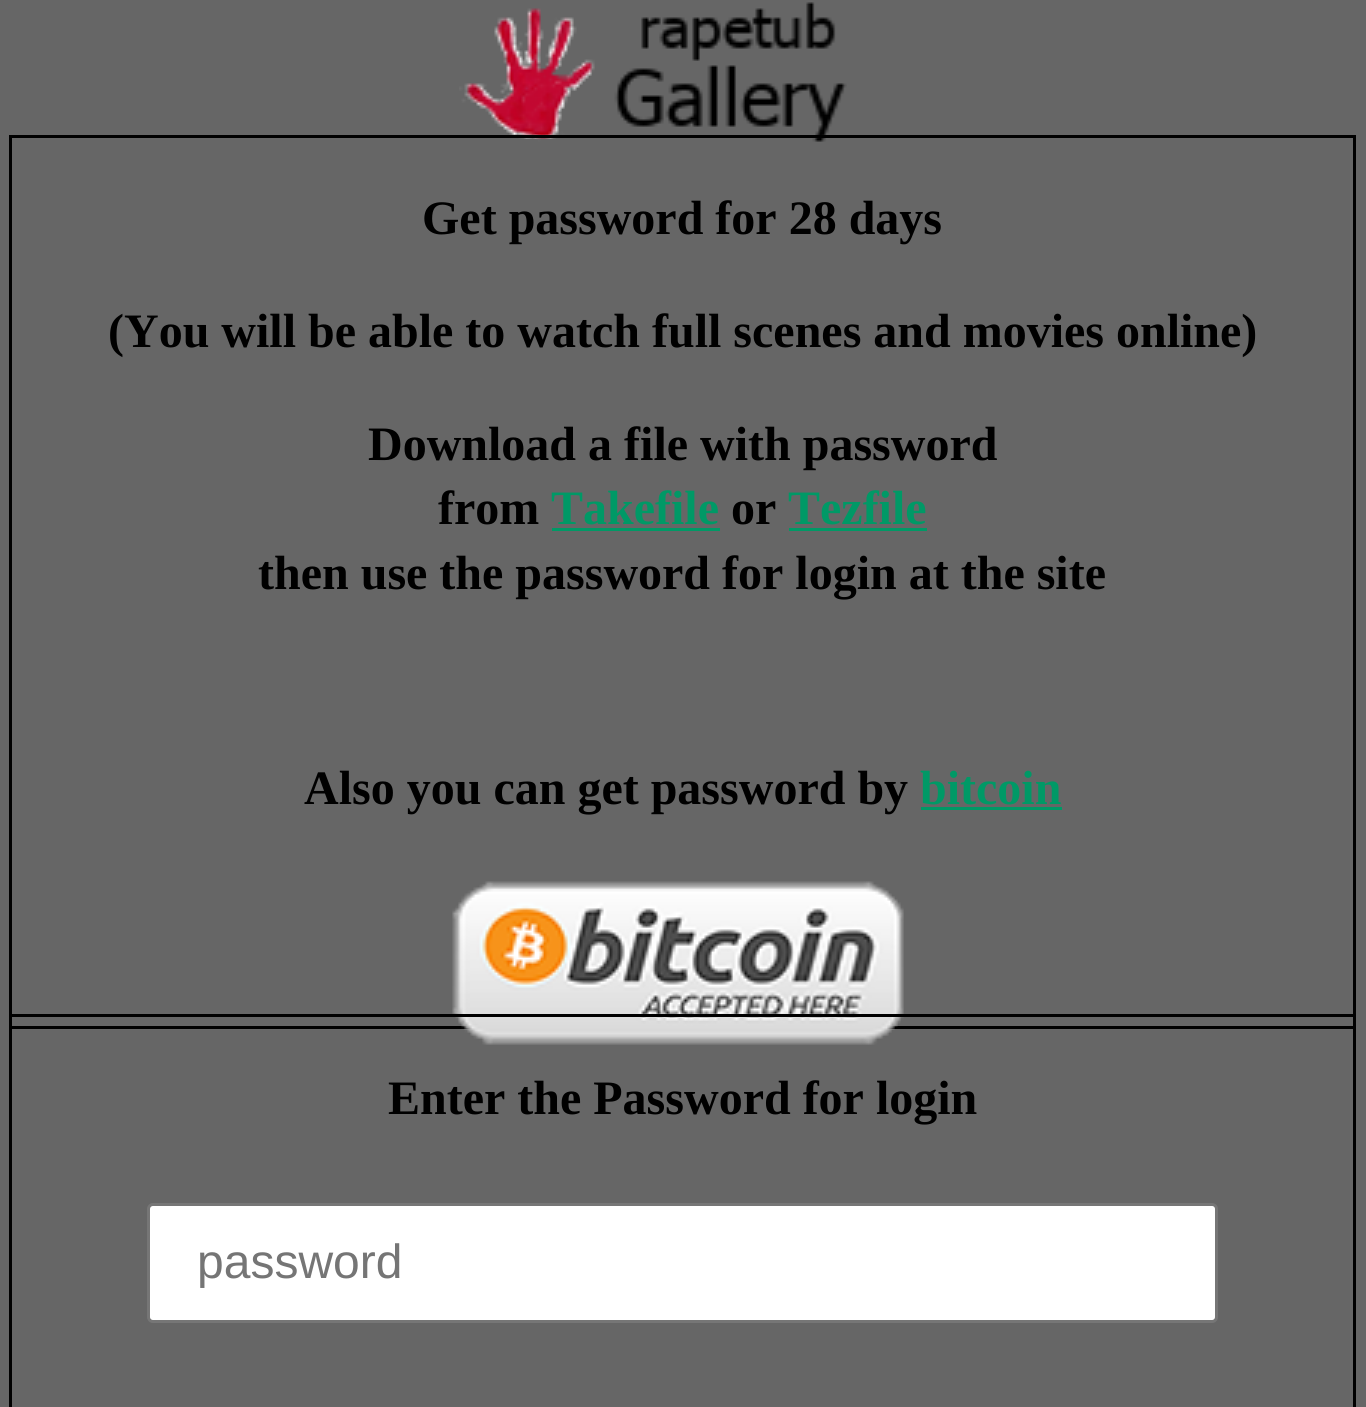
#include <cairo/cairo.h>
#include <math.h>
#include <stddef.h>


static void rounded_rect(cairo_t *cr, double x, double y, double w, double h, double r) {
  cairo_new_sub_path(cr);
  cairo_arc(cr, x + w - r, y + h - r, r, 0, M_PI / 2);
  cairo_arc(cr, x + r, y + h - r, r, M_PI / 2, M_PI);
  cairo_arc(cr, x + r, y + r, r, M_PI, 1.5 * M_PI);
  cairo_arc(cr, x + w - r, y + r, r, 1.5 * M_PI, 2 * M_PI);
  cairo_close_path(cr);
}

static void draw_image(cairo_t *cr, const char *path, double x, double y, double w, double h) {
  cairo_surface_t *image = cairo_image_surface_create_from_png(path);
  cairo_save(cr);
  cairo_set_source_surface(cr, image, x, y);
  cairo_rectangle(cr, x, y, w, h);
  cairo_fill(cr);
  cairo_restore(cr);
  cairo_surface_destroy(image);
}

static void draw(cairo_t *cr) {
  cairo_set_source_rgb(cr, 102 / 255.0, 102 / 255.0, 102 / 255.0);
  cairo_paint(cr);
  draw_image(cr, "images/1.png", 459, 2, 388, 140);
  cairo_rectangle(cr, 10.5, 136.5, 1344, 891);
  cairo_set_source_rgb(cr, 0, 0, 0);
  cairo_set_line_width(cr, 3);
  cairo_stroke(cr);
  cairo_set_source_rgb(cr, 0, 153 / 255.0, 102 / 255.0);
  cairo_rectangle(cr, 552, 528, 168, 3);
  cairo_fill(cr);
  cairo_rectangle(cr, 789, 528, 138, 3);
  cairo_fill(cr);
  cairo_rectangle(cr, 921, 807, 141, 3);
  cairo_fill(cr);
  draw_image(cr, "images/2.png", 452, 881, 452, 164);
  cairo_rectangle(cr, 10.5, 1015.5, 1344, 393);
  cairo_set_source_rgb(cr, 0, 0, 0);
  cairo_stroke(cr);
  cairo_set_source_rgb(cr, 1, 1, 1);
  rounded_rect(cr, 148.5, 1204.5, 1068, 117, 4.5);
  cairo_fill_preserve(cr);
  cairo_set_source_rgb(cr, 118 / 255.0, 118 / 255.0, 118 / 255.0);
  cairo_stroke(cr);
  cairo_select_font_face(cr, "Liberation Serif", CAIRO_FONT_SLANT_NORMAL, CAIRO_FONT_WEIGHT_BOLD);
  cairo_set_font_size(cr, 48);
  cairo_set_source_rgb(cr, 0, 0, 0);
  cairo_move_to(cr, 422, 234);
  cairo_show_text(cr, "Get password for 28 days");
  cairo_move_to(cr, 108, 347);
  cairo_show_text(cr, "(You will be able to watch full scenes and movies online)");
  cairo_move_to(cr, 368, 460);
  cairo_show_text(cr, "Download a file with password");
  cairo_move_to(cr, 438, 524);
  cairo_show_text(cr, "from");
  cairo_set_source_rgb(cr, 0, 153 / 255.0, 102 / 255.0);
  cairo_move_to(cr, 551, 524);
  cairo_show_text(cr, "Takefile");
  cairo_set_source_rgb(cr, 0, 0, 0);
  cairo_move_to(cr, 731, 524);
  cairo_show_text(cr, "or");
  cairo_set_source_rgb(cr, 0, 153 / 255.0, 102 / 255.0);
  cairo_move_to(cr, 788, 524);
  cairo_show_text(cr, "Tezfile");
  cairo_set_source_rgb(cr, 0, 0, 0);
  cairo_move_to(cr, 258, 589);
  cairo_show_text(cr, "then use the password for login at the site");
  cairo_move_to(cr, 304, 804);
  cairo_show_text(cr, "Also you can get password by");
  cairo_set_source_rgb(cr, 0, 153 / 255.0, 102 / 255.0);
  cairo_move_to(cr, 920, 804);
  cairo_show_text(cr, "bitcoin");
  cairo_set_source_rgb(cr, 0, 0, 0);
  cairo_move_to(cr, 388, 1114);
  cairo_show_text(cr, "Enter the Password for login");
  cairo_select_font_face(cr, "Liberation Sans", CAIRO_FONT_SLANT_NORMAL, CAIRO_FONT_WEIGHT_NORMAL);
  cairo_set_source_rgb(cr, 117 / 255.0, 117 / 255.0, 117 / 255.0);
  cairo_move_to(cr, 197, 1278);
  cairo_show_text(cr, "password");
}

int main(void) {
  cairo_surface_t *surface = cairo_image_surface_create(CAIRO_FORMAT_RGB24, 1366, 1407);
  cairo_t *cr = cairo_create(surface);
  cairo_font_options_t *options = cairo_font_options_create();
  cairo_font_options_set_hint_metrics(options, CAIRO_HINT_METRICS_OFF);
  cairo_font_options_set_hint_style(options, CAIRO_HINT_STYLE_NONE);
  cairo_set_font_options(cr, options);
  cairo_set_miter_limit(cr, 4);
  draw(cr);
  cairo_surface_write_to_png(surface, "out.png");
  cairo_font_options_destroy(options);
  cairo_destroy(cr);
  cairo_surface_destroy(surface);
  return 0;
}
